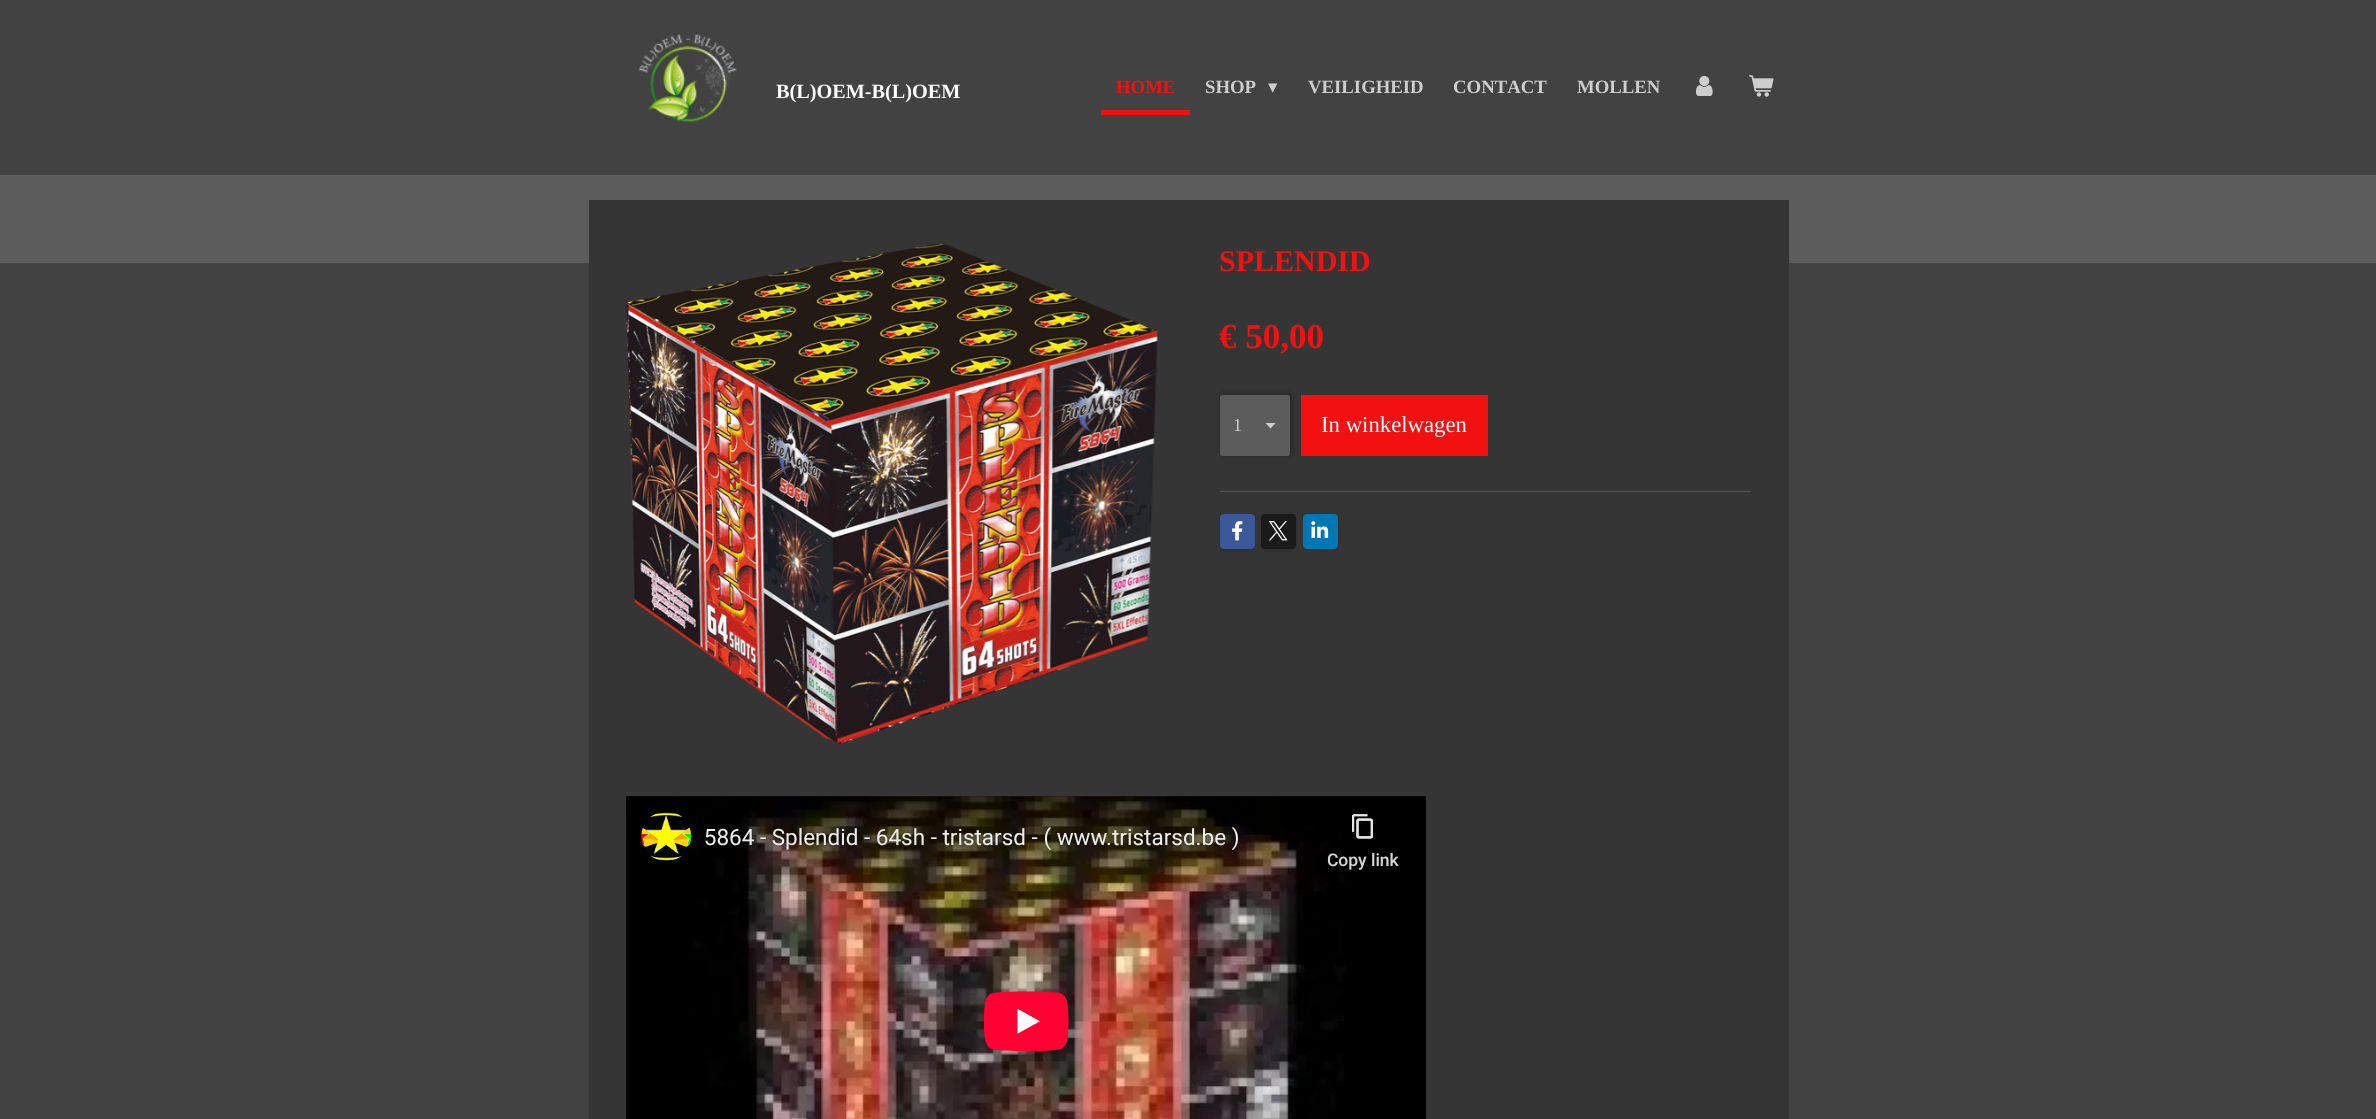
#include <cairo/cairo.h>
#include <math.h>
#include <stddef.h>


static void rounded_rect(cairo_t *cr, double x, double y, double w, double h, double r) {
  cairo_new_sub_path(cr);
  cairo_arc(cr, x + w - r, y + h - r, r, 0, M_PI / 2);
  cairo_arc(cr, x + r, y + h - r, r, M_PI / 2, M_PI);
  cairo_arc(cr, x + r, y + r, r, M_PI, 1.5 * M_PI);
  cairo_arc(cr, x + w - r, y + r, r, 1.5 * M_PI, 2 * M_PI);
  cairo_close_path(cr);
}

static void draw_shadow(cairo_t *cr, double x, double y, double w, double h, double r, double blur, double alpha) {
  cairo_push_group_with_content(cr, CAIRO_CONTENT_ALPHA);
  cairo_set_operator(cr, CAIRO_OPERATOR_SOURCE);
  for (int i = 15; i >= -15 && fmin(w, h) + blur * i / 3 > 0; i -= 2) {
    double e = blur * i / 6;
    cairo_set_source_rgba(cr, 0, 0, 0, alpha * erfc((i - 1) / 8.5) / 2);
    rounded_rect(cr, x - e, y - e, w + 2 * e, h + 2 * e, fmax(0, fmin(r + e + blur * .6, fmin(w, h) / 2 + e)));
    cairo_fill(cr);
  }
  cairo_pattern_t *soft = cairo_pop_group(cr);
  cairo_mask(cr, soft);
  cairo_pattern_destroy(soft);
}

static void draw_image(cairo_t *cr, const char *path, double x, double y, double w, double h) {
  cairo_surface_t *image = cairo_image_surface_create_from_png(path);
  cairo_save(cr);
  cairo_set_source_surface(cr, image, x, y);
  cairo_rectangle(cr, x, y, w, h);
  cairo_fill(cr);
  cairo_restore(cr);
  cairo_surface_destroy(image);
}

static void draw(cairo_t *cr) {
  cairo_set_source_rgb(cr, 66 / 255.0, 66 / 255.0, 66 / 255.0);
  cairo_paint(cr);
  draw_image(cr, "images/1.png", 638, 33, 99, 90);
  cairo_set_source_rgb(cr, 243 / 255.0, 16 / 255.0, 16 / 255.0);
  cairo_rectangle(cr, 1101, 110, 89, 5);
  cairo_fill(cr);
  draw_image(cr, "images/2.png", 1695, 75, 18, 21);
  draw_image(cr, "images/3.png", 1749, 75, 25, 22);
  cairo_set_source_rgb(cr, 92 / 255.0, 92 / 255.0, 92 / 255.0);
  cairo_rectangle(cr, 0, 175, 2376, 88);
  cairo_fill(cr);
  cairo_set_source_rgb(cr, 53 / 255.0, 53 / 255.0, 53 / 255.0);
  cairo_rectangle(cr, 589, 200, 1200, 919);
  cairo_fill(cr);
  draw_image(cr, "images/4.png", 626, 244, 532, 500);
  cairo_set_source_rgb(cr, 0, 0, 0);
  draw_shadow(cr, 1221, 394, 70, 61, 2.5, 3, 0.35);
  cairo_set_source_rgb(cr, 92 / 255.0, 92 / 255.0, 92 / 255.0);
  rounded_rect(cr, 1220, 395, 70, 61, 2.5);
  cairo_fill(cr);
  cairo_save(cr);
  cairo_rectangle(cr, 1265, 423, 11, 6);
  cairo_clip(cr);
  cairo_set_source_rgb(cr, 206 / 255.0, 206 / 255.0, 206 / 255.0);
  cairo_new_path(cr);
  cairo_move_to(cr, 1270.5, 428.5);
  cairo_line_to(cr, 1265, 422.5);
  cairo_line_to(cr, 1276, 422.5);
  cairo_close_path(cr);
  cairo_fill(cr);
  cairo_restore(cr);
  cairo_set_source_rgb(cr, 243 / 255.0, 16 / 255.0, 16 / 255.0);
  cairo_rectangle(cr, 1301, 395, 187, 61);
  cairo_fill(cr);
  cairo_set_source_rgb(cr, 84 / 255.0, 84 / 255.0, 84 / 255.0);
  cairo_rectangle(cr, 1220, 491, 531, 1);
  cairo_fill(cr);
  cairo_set_source_rgb(cr, 0, 0, 0);
  draw_shadow(cr, 1220, 515, 35, 35, 4, 2, 0.2);
  cairo_set_source_rgb(cr, 59 / 255.0, 89 / 255.0, 152 / 255.0);
  rounded_rect(cr, 1220, 514, 35, 35, 4);
  cairo_fill(cr);
  draw_image(cr, "images/5.png", 1232, 521, 11, 20);
  cairo_set_source_rgb(cr, 0, 0, 0);
  draw_shadow(cr, 1261, 515, 35, 35, 4, 2, 0.2);
  cairo_set_source_rgb(cr, 26 / 255.0, 26 / 255.0, 26 / 255.0);
  rounded_rect(cr, 1261, 514, 35, 35, 4);
  cairo_fill(cr);
  draw_image(cr, "images/6.png", 1268, 521, 20, 20);
  cairo_set_source_rgb(cr, 0, 0, 0);
  draw_shadow(cr, 1303, 515, 35, 35, 4, 2, 0.2);
  cairo_set_source_rgb(cr, 0, 119 / 255.0, 181 / 255.0);
  rounded_rect(cr, 1303, 514, 35, 35, 4);
  cairo_fill(cr);
  draw_image(cr, "images/7.png", 1311, 521, 18, 17);
  draw_image(cr, "images/8.png", 626, 796, 801, 323);
  cairo_select_font_face(cr, "Liberation Serif", CAIRO_FONT_SLANT_NORMAL, CAIRO_FONT_WEIGHT_BOLD);
  cairo_set_font_size(cr, 20.25);
  cairo_set_source_rgb(cr, 1, 1, 1);
  cairo_move_to(cr, 776, 98);
  cairo_show_text(cr, "B(L)OEM-B(L)OEM");
  cairo_set_font_size(cr, 18.75);
  cairo_set_source_rgb(cr, 243 / 255.0, 16 / 255.0, 16 / 255.0);
  cairo_move_to(cr, 1116, 93);
  cairo_show_text(cr, "HOME");
  cairo_set_source_rgb(cr, 206 / 255.0, 206 / 255.0, 206 / 255.0);
  cairo_move_to(cr, 1205, 93);
  cairo_show_text(cr, "SHOP");
  cairo_select_font_face(cr, "DejaVu Sans", CAIRO_FONT_SLANT_NORMAL, CAIRO_FONT_WEIGHT_NORMAL);
  cairo_move_to(cr, 1268, 93);
  cairo_show_text(cr, "▾");
  cairo_select_font_face(cr, "Liberation Serif", CAIRO_FONT_SLANT_NORMAL, CAIRO_FONT_WEIGHT_BOLD);
  cairo_move_to(cr, 1308, 93);
  cairo_show_text(cr, "VEILIGHEID");
  cairo_move_to(cr, 1453, 93);
  cairo_show_text(cr, "CONTACT");
  cairo_move_to(cr, 1577, 93);
  cairo_show_text(cr, "MOLLEN");
  cairo_set_font_size(cr, 30);
  cairo_set_source_rgb(cr, 243 / 255.0, 16 / 255.0, 16 / 255.0);
  cairo_move_to(cr, 1219, 271);
  cairo_show_text(cr, "SPLENDID");
  cairo_set_font_size(cr, 35);
  cairo_move_to(cr, 1219, 348);
  cairo_show_text(cr, "€ 50,00");
  cairo_select_font_face(cr, "Liberation Serif", CAIRO_FONT_SLANT_NORMAL, CAIRO_FONT_WEIGHT_NORMAL);
  cairo_set_font_size(cr, 18);
  cairo_set_source_rgb(cr, 206 / 255.0, 206 / 255.0, 206 / 255.0);
  cairo_move_to(cr, 1233, 431);
  cairo_show_text(cr, "1");
  cairo_set_font_size(cr, 22.75);
  cairo_set_source_rgb(cr, 1, 1, 1);
  cairo_move_to(cr, 1321, 432);
  cairo_show_text(cr, "In winkelwagen");
}

int main(void) {
  cairo_surface_t *surface = cairo_image_surface_create(CAIRO_FORMAT_RGB24, 2376, 1119);
  cairo_t *cr = cairo_create(surface);
  cairo_font_options_t *options = cairo_font_options_create();
  cairo_font_options_set_hint_metrics(options, CAIRO_HINT_METRICS_OFF);
  cairo_font_options_set_hint_style(options, CAIRO_HINT_STYLE_NONE);
  cairo_set_font_options(cr, options);
  cairo_set_miter_limit(cr, 4);
  draw(cr);
  cairo_surface_write_to_png(surface, "out.png");
  cairo_font_options_destroy(options);
  cairo_destroy(cr);
  cairo_surface_destroy(surface);
  return 0;
}
